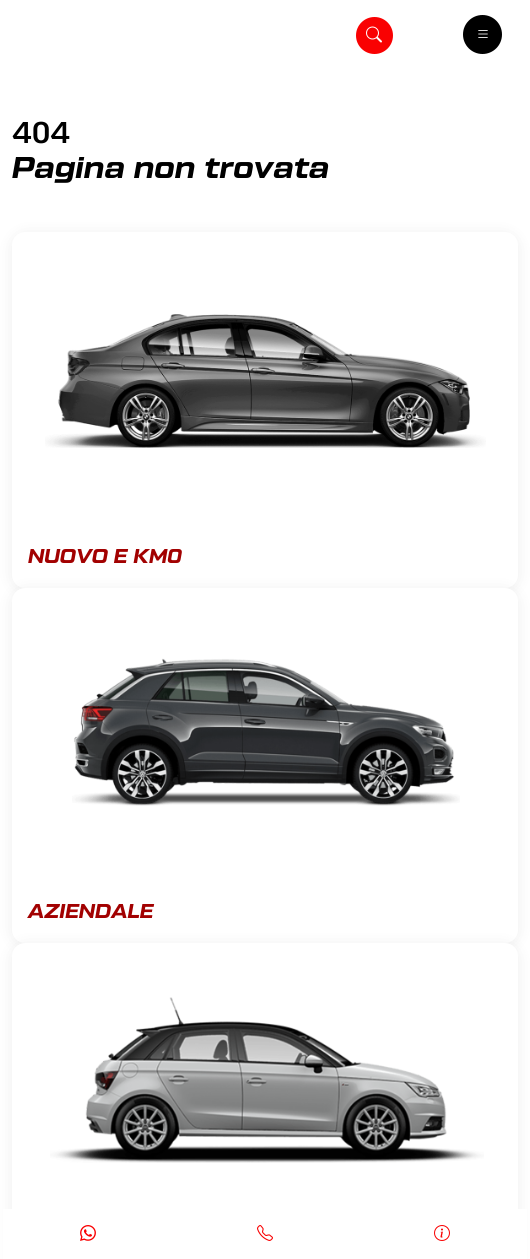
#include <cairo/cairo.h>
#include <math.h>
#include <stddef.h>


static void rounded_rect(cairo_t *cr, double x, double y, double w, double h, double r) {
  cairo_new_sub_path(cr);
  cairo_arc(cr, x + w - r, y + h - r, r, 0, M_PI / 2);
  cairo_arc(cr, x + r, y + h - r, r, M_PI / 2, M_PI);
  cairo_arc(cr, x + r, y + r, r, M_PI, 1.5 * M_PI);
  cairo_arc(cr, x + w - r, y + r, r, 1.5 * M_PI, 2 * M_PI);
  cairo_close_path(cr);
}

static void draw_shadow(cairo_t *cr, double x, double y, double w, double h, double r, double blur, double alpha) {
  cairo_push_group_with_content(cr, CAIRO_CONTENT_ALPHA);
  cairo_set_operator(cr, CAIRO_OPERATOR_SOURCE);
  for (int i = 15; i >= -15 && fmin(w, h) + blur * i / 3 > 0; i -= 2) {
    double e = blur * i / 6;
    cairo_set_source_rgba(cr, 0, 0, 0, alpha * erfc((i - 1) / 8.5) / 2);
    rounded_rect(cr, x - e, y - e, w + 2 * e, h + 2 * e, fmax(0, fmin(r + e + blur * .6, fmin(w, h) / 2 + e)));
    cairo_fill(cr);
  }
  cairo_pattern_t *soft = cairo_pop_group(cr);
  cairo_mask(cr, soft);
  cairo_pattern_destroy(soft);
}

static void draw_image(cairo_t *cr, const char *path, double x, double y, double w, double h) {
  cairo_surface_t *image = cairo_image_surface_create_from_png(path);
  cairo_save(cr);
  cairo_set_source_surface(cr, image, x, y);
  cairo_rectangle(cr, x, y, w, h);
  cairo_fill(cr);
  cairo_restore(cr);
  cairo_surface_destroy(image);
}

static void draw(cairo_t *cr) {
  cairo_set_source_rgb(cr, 1, 1, 1);
  cairo_paint(cr);
  cairo_set_source_rgb(cr, 249 / 255.0, 1 / 255.0, 2 / 255.0);
  cairo_arc(cr, 374.5, 35.5, 18.5, 0, 2 * M_PI);
  cairo_fill(cr);
  draw_image(cr, "images/1.png", 366, 26, 16, 17);
  cairo_set_source_rgb(cr, 0, 0, 0);
  cairo_arc(cr, 482.5, 34.5, 19.5, 0, 2 * M_PI);
  cairo_fill(cr);
  draw_image(cr, "images/2.png", 478, 30, 10, 8);
  cairo_set_source_rgb(cr, 0, 0, 0);
  draw_shadow(cr, 12, 234, 506, 356, 13, 8, 0.07);
  cairo_set_source_rgb(cr, 1, 1, 1);
  rounded_rect(cr, 12, 232, 506, 356, 13);
  cairo_fill(cr);
  draw_image(cr, "images/3.png", 45, 314, 441, 134);
  cairo_set_source_rgb(cr, 0, 0, 0);
  draw_shadow(cr, 12, 590, 506, 355, 13, 8, 0.07);
  cairo_set_source_rgb(cr, 1, 1, 1);
  rounded_rect(cr, 12, 588, 506, 355, 13);
  cairo_fill(cr);
  draw_image(cr, "images/4.png", 72, 658, 388, 148);
  cairo_set_source_rgb(cr, 0, 0, 0);
  draw_shadow(cr, 12, 945, 506, 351, 13, 8, 0.07);
  cairo_set_source_rgb(cr, 1, 1, 1);
  rounded_rect(cr, 12, 943, 506, 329, 13);
  cairo_fill(cr);
  draw_image(cr, "images/5.png", 50, 997, 434, 166);
  cairo_rectangle(cr, 3, 1209, 524, 50);
  cairo_fill(cr);
  draw_image(cr, "images/6.png", 80, 1225, 16, 16);
  draw_image(cr, "images/7.png", 257, 1225, 16, 16);
  draw_image(cr, "images/8.png", 434, 1225, 16, 16);
  cairo_select_font_face(cr, "KoHo", CAIRO_FONT_SLANT_NORMAL, CAIRO_FONT_WEIGHT_BOLD);
  cairo_set_font_size(cr, 30);
  cairo_set_source_rgb(cr, 0, 0, 0);
  cairo_move_to(cr, 12, 143);
  cairo_show_text(cr, "404");
  cairo_select_font_face(cr, "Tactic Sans", CAIRO_FONT_SLANT_NORMAL, CAIRO_FONT_WEIGHT_BOLD);
  cairo_move_to(cr, 12, 178);
  cairo_show_text(cr, "Pagina non trovata");
  cairo_set_font_size(cr, 20);
  cairo_set_source_rgb(cr, 162 / 255.0, 1 / 255.0, 1 / 255.0);
  cairo_move_to(cr, 28, 563);
  cairo_show_text(cr, "NUOVO E KM0");
  cairo_move_to(cr, 28, 918);
  cairo_show_text(cr, "AZIENDALE");
}

int main(void) {
  cairo_surface_t *surface = cairo_image_surface_create(CAIRO_FORMAT_RGB24, 530, 1259);
  cairo_t *cr = cairo_create(surface);
  cairo_font_options_t *options = cairo_font_options_create();
  cairo_font_options_set_hint_metrics(options, CAIRO_HINT_METRICS_OFF);
  cairo_font_options_set_hint_style(options, CAIRO_HINT_STYLE_NONE);
  cairo_set_font_options(cr, options);
  cairo_set_miter_limit(cr, 4);
  draw(cr);
  cairo_surface_write_to_png(surface, "out.png");
  cairo_font_options_destroy(options);
  cairo_destroy(cr);
  cairo_surface_destroy(surface);
  return 0;
}
